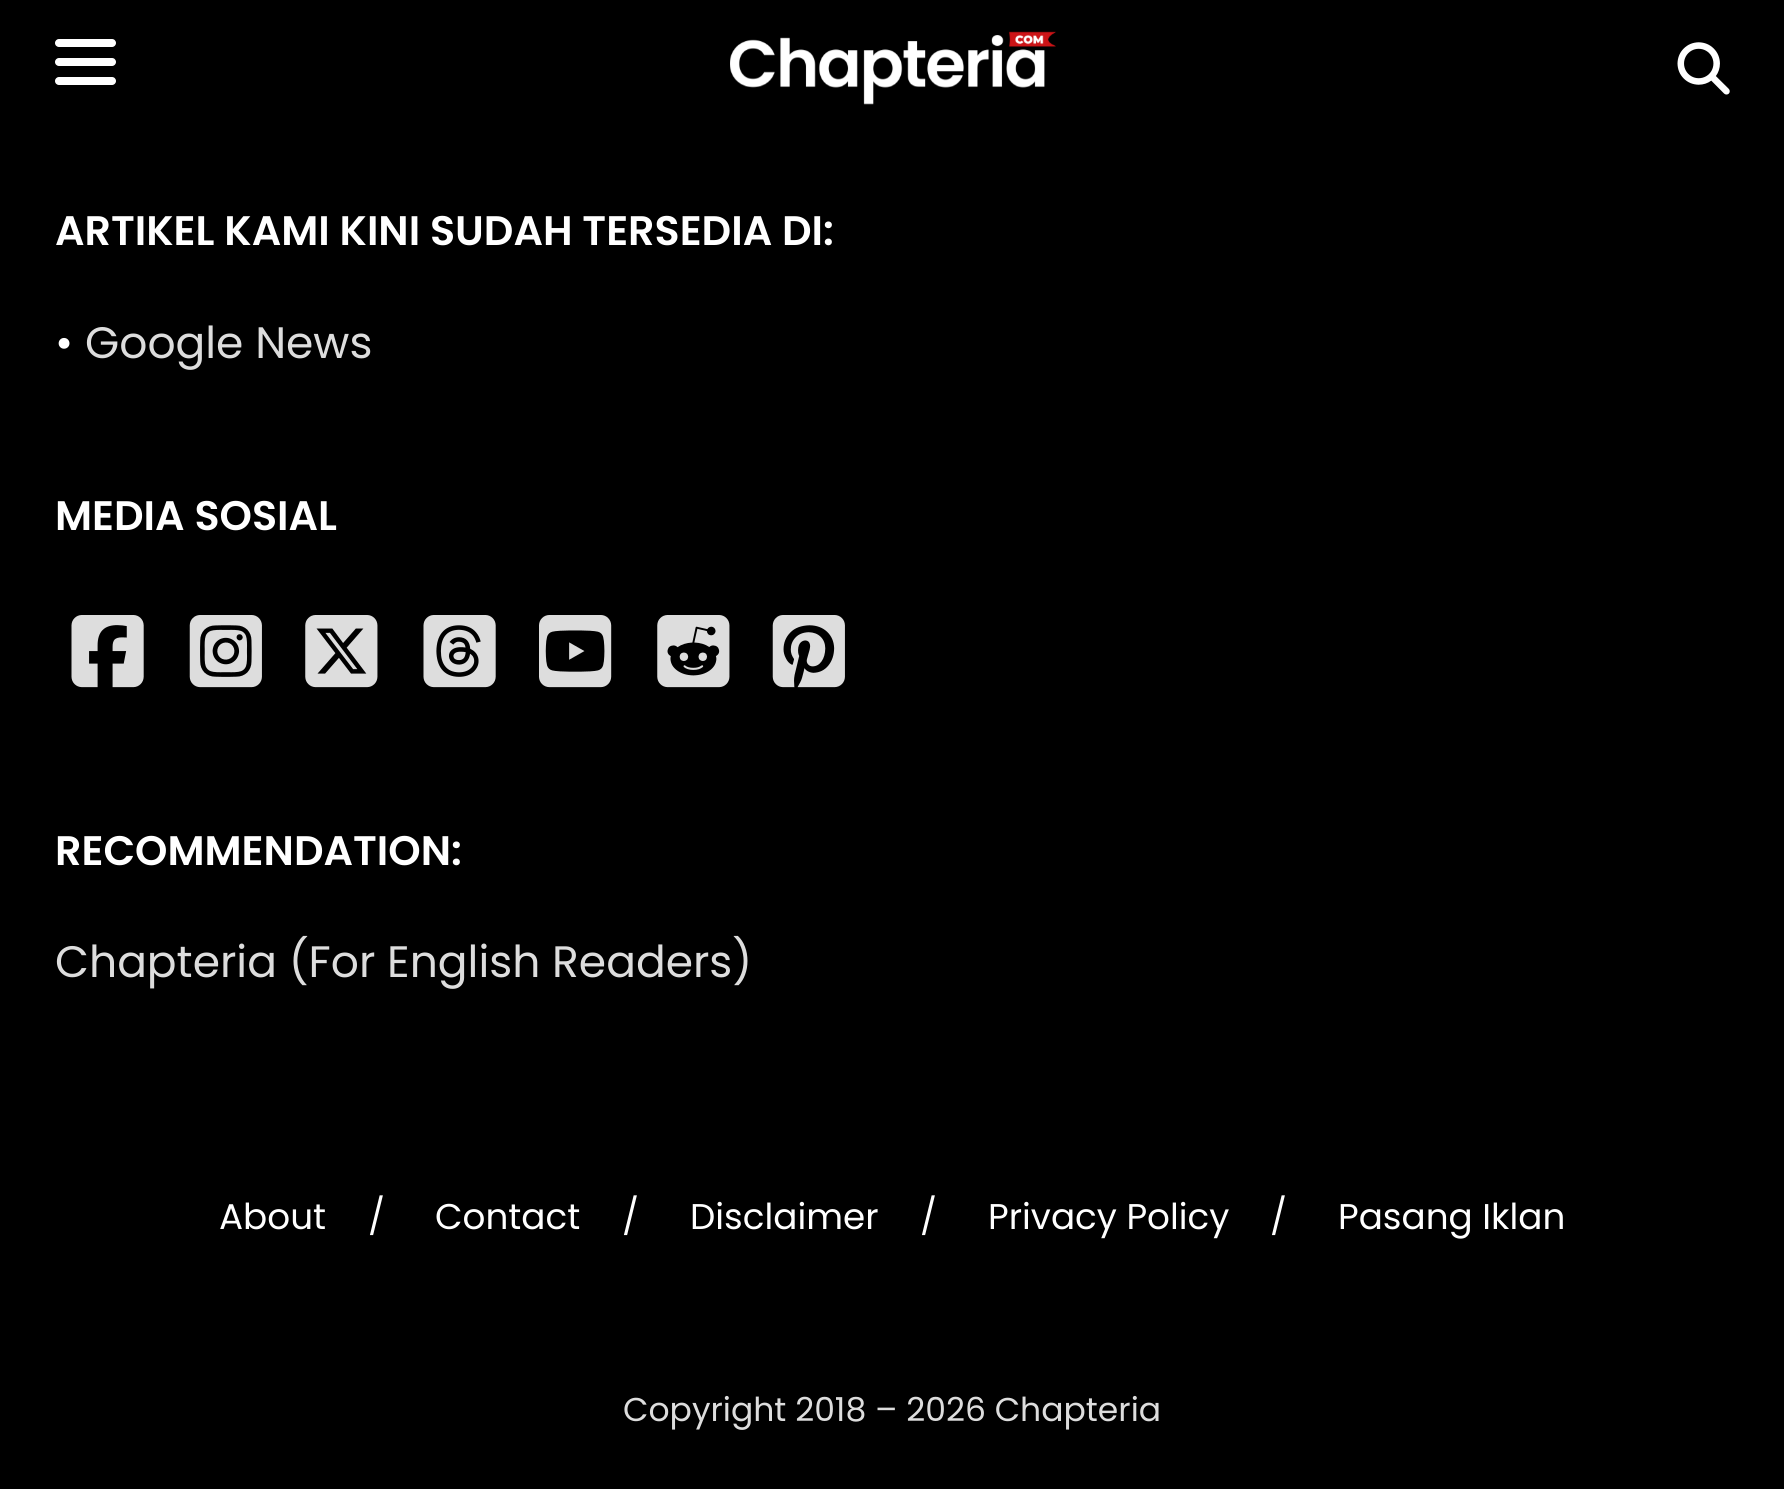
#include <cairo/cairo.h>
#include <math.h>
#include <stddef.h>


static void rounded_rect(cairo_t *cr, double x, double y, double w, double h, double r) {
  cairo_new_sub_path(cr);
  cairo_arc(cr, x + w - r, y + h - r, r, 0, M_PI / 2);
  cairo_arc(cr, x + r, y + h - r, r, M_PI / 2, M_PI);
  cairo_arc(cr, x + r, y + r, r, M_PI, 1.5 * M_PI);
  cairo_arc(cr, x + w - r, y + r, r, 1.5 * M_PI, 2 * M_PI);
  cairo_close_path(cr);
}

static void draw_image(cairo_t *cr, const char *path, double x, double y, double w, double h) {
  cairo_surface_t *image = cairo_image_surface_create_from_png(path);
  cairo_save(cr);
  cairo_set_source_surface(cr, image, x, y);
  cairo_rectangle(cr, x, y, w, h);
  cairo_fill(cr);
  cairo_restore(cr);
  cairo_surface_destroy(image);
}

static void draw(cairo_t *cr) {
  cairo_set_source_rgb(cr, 0, 0, 0);
  cairo_paint(cr);
  cairo_set_source_rgb(cr, 1, 1, 1);
  rounded_rect(cr, 55, 39, 61, 8, 4);
  cairo_fill(cr);
  rounded_rect(cr, 55, 58, 61, 8, 4);
  cairo_fill(cr);
  rounded_rect(cr, 55, 77, 61, 8, 4);
  cairo_fill(cr);
  draw_image(cr, "images/1.png", 730, 31, 326, 74);
  draw_image(cr, "images/2.png", 1677, 42, 53, 53);
  draw_image(cr, "images/3.png", 71, 615, 73, 73);
  draw_image(cr, "images/4.png", 189, 615, 73, 73);
  draw_image(cr, "images/5.png", 305, 615, 73, 73);
  draw_image(cr, "images/6.png", 423, 615, 73, 73);
  draw_image(cr, "images/7.png", 539, 615, 73, 73);
  draw_image(cr, "images/8.png", 657, 615, 73, 73);
  draw_image(cr, "images/9.png", 772, 615, 73, 73);
  cairo_select_font_face(cr, "Poppins SemiBold", CAIRO_FONT_SLANT_NORMAL, CAIRO_FONT_WEIGHT_NORMAL);
  cairo_set_font_size(cr, 41.25);
  cairo_move_to(cr, 55, 245);
  cairo_show_text(cr, "ARTIKEL KAMI KINI SUDAH TERSEDIA DI:");
  cairo_select_font_face(cr, "Poppins", CAIRO_FONT_SLANT_NORMAL, CAIRO_FONT_WEIGHT_NORMAL);
  cairo_set_font_size(cr, 44);
  cairo_move_to(cr, 55, 358);
  cairo_show_text(cr, "•");
  cairo_set_source_rgb(cr, 221 / 255.0, 221 / 255.0, 221 / 255.0);
  cairo_move_to(cr, 85, 358);
  cairo_show_text(cr, "Google News");
  cairo_select_font_face(cr, "Poppins SemiBold", CAIRO_FONT_SLANT_NORMAL, CAIRO_FONT_WEIGHT_NORMAL);
  cairo_set_font_size(cr, 41.25);
  cairo_set_source_rgb(cr, 1, 1, 1);
  cairo_move_to(cr, 55, 530);
  cairo_show_text(cr, "MEDIA SOSIAL");
  cairo_move_to(cr, 55, 865);
  cairo_show_text(cr, "RECOMMENDATION:");
  cairo_select_font_face(cr, "Poppins", CAIRO_FONT_SLANT_NORMAL, CAIRO_FONT_WEIGHT_NORMAL);
  cairo_set_font_size(cr, 44);
  cairo_set_source_rgb(cr, 221 / 255.0, 221 / 255.0, 221 / 255.0);
  cairo_move_to(cr, 55, 977);
  cairo_show_text(cr, "Chapteria (For English Readers)");
  cairo_set_font_size(cr, 35.75);
  cairo_set_source_rgb(cr, 1, 1, 1);
  cairo_move_to(cr, 219, 1229);
  cairo_show_text(cr, "About");
  cairo_move_to(cr, 368, 1229);
  cairo_show_text(cr, "/");
  cairo_move_to(cr, 435, 1229);
  cairo_show_text(cr, "Contact");
  cairo_move_to(cr, 622, 1229);
  cairo_show_text(cr, "/");
  cairo_move_to(cr, 690, 1229);
  cairo_show_text(cr, "Disclaimer");
  cairo_move_to(cr, 920, 1229);
  cairo_show_text(cr, "/");
  cairo_move_to(cr, 988, 1229);
  cairo_show_text(cr, "Privacy Policy");
  cairo_move_to(cr, 1270, 1229);
  cairo_show_text(cr, "/");
  cairo_move_to(cr, 1338, 1229);
  cairo_show_text(cr, "Pasang Iklan");
  cairo_set_font_size(cr, 33);
  cairo_set_source_rgb(cr, 221 / 255.0, 221 / 255.0, 221 / 255.0);
  cairo_move_to(cr, 623, 1421);
  cairo_show_text(cr, "Copyright 2018 – 2026 Chapteria");
}

int main(void) {
  cairo_surface_t *surface = cairo_image_surface_create(CAIRO_FORMAT_RGB24, 1784, 1489);
  cairo_t *cr = cairo_create(surface);
  cairo_font_options_t *options = cairo_font_options_create();
  cairo_font_options_set_hint_metrics(options, CAIRO_HINT_METRICS_OFF);
  cairo_font_options_set_hint_style(options, CAIRO_HINT_STYLE_NONE);
  cairo_set_font_options(cr, options);
  cairo_set_miter_limit(cr, 4);
  draw(cr);
  cairo_surface_write_to_png(surface, "out.png");
  cairo_font_options_destroy(options);
  cairo_destroy(cr);
  cairo_surface_destroy(surface);
  return 0;
}
